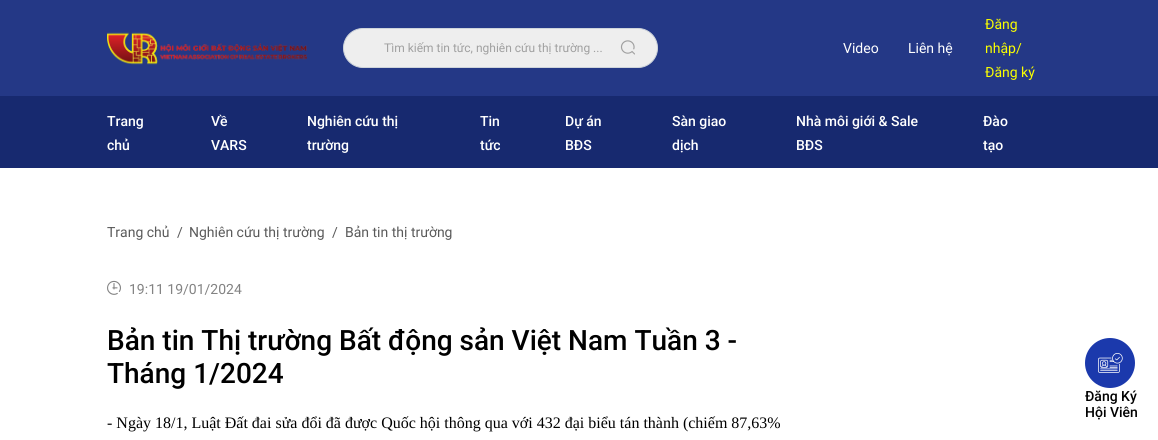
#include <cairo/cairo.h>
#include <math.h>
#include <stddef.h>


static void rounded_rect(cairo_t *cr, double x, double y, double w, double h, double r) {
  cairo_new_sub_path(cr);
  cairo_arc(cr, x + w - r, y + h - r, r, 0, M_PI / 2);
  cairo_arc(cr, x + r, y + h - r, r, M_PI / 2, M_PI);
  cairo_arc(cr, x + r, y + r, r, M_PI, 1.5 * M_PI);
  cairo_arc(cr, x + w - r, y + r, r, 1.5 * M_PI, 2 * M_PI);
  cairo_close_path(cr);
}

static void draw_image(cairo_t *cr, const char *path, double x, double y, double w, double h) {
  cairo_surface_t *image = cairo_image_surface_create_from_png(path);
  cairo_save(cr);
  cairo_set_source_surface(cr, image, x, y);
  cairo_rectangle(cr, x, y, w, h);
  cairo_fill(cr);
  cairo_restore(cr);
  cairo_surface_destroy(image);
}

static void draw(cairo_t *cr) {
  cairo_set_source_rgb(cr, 1, 1, 1);
  cairo_paint(cr);
  cairo_set_source_rgb(cr, 36 / 255.0, 56 / 255.0, 134 / 255.0);
  cairo_rectangle(cr, 0, 0, 1158, 96);
  cairo_fill(cr);
  draw_image(cr, "images/1.png", 107, 32, 200, 33);
  cairo_set_source_rgb(cr, 238 / 255.0, 238 / 255.0, 238 / 255.0);
  rounded_rect(cr, 343.5, 28.5, 314, 39, 19.5);
  cairo_fill_preserve(cr);
  cairo_set_source_rgb(cr, 206 / 255.0, 212 / 255.0, 218 / 255.0);
  cairo_set_line_width(cr, 1);
  cairo_stroke(cr);
  draw_image(cr, "images/2.png", 620, 40, 15, 15);
  cairo_set_source_rgb(cr, 23 / 255.0, 41 / 255.0, 111 / 255.0);
  cairo_rectangle(cr, 0, 96, 1158, 72);
  cairo_fill(cr);
  draw_image(cr, "images/3.png", 107, 280, 14, 15);
  cairo_set_source_rgb(cr, 27 / 255.0, 57 / 255.0, 172 / 255.0);
  cairo_arc(cr, 1110, 363, 25, 0, 2 * M_PI);
  cairo_fill(cr);
  draw_image(cr, "images/4.png", 1098, 353, 25, 20);
  cairo_select_font_face(cr, "Roboto", CAIRO_FONT_SLANT_NORMAL, CAIRO_FONT_WEIGHT_NORMAL);
  cairo_set_font_size(cr, 12);
  cairo_set_source_rgb(cr, 160 / 255.0, 160 / 255.0, 160 / 255.0);
  cairo_move_to(cr, 384, 52);
  cairo_show_text(cr, "Tìm kiếm tin tức, nghiên cứu thị trường ...");
  cairo_set_font_size(cr, 14);
  cairo_set_source_rgb(cr, 1, 1, 1);
  cairo_move_to(cr, 843, 53);
  cairo_show_text(cr, "Video");
  cairo_move_to(cr, 908, 53);
  cairo_show_text(cr, "Liên hệ");
  cairo_set_source_rgb(cr, 250 / 255.0, 1, 0);
  cairo_move_to(cr, 985, 29);
  cairo_show_text(cr, "Đăng");
  cairo_move_to(cr, 985, 53);
  cairo_show_text(cr, "nhập/");
  cairo_move_to(cr, 985, 77);
  cairo_show_text(cr, "Đăng ký");
  cairo_select_font_face(cr, "Roboto Medium", CAIRO_FONT_SLANT_NORMAL, CAIRO_FONT_WEIGHT_NORMAL);
  cairo_set_source_rgb(cr, 1, 1, 1);
  cairo_move_to(cr, 107, 126);
  cairo_show_text(cr, "Trang");
  cairo_move_to(cr, 107, 150);
  cairo_show_text(cr, "chủ");
  cairo_move_to(cr, 211, 126);
  cairo_show_text(cr, "Về");
  cairo_move_to(cr, 211, 150);
  cairo_show_text(cr, "VARS");
  cairo_move_to(cr, 307, 126);
  cairo_show_text(cr, "Nghiên cứu thị");
  cairo_move_to(cr, 307, 150);
  cairo_show_text(cr, "trường");
  cairo_move_to(cr, 480, 126);
  cairo_show_text(cr, "Tin");
  cairo_move_to(cr, 480, 150);
  cairo_show_text(cr, "tức");
  cairo_move_to(cr, 565, 126);
  cairo_show_text(cr, "Dự án");
  cairo_move_to(cr, 565, 150);
  cairo_show_text(cr, "BĐS");
  cairo_move_to(cr, 672, 126);
  cairo_show_text(cr, "Sàn giao");
  cairo_move_to(cr, 672, 150);
  cairo_show_text(cr, "dịch");
  cairo_move_to(cr, 796, 126);
  cairo_show_text(cr, "Nhà môi giới & Sale");
  cairo_move_to(cr, 796, 150);
  cairo_show_text(cr, "BĐS");
  cairo_move_to(cr, 983, 126);
  cairo_show_text(cr, "Đào");
  cairo_move_to(cr, 983, 150);
  cairo_show_text(cr, "tạo");
  cairo_select_font_face(cr, "Roboto", CAIRO_FONT_SLANT_NORMAL, CAIRO_FONT_WEIGHT_NORMAL);
  cairo_set_source_rgb(cr, 90 / 255.0, 90 / 255.0, 90 / 255.0);
  cairo_move_to(cr, 107, 237);
  cairo_show_text(cr, "Trang chủ");
  cairo_move_to(cr, 177, 237);
  cairo_show_text(cr, "/");
  cairo_move_to(cr, 189, 237);
  cairo_show_text(cr, "Nghiên cứu thị trường");
  cairo_move_to(cr, 332, 237);
  cairo_show_text(cr, "/");
  cairo_move_to(cr, 345, 237);
  cairo_show_text(cr, "Bản tin thị trường");
  cairo_set_source_rgb(cr, 131 / 255.0, 131 / 255.0, 131 / 255.0);
  cairo_move_to(cr, 129, 294);
  cairo_show_text(cr, "19:11 19/01/2024");
  cairo_select_font_face(cr, "Roboto Medium", CAIRO_FONT_SLANT_NORMAL, CAIRO_FONT_WEIGHT_NORMAL);
  cairo_set_font_size(cr, 28);
  cairo_set_source_rgb(cr, 0, 0, 0);
  cairo_move_to(cr, 107, 350);
  cairo_show_text(cr, "Bản tin Thị trường Bất động sản Việt Nam Tuần 3 -");
  cairo_move_to(cr, 107, 383);
  cairo_show_text(cr, "Tháng 1/2024");
  cairo_select_font_face(cr, "Liberation Serif", CAIRO_FONT_SLANT_NORMAL, CAIRO_FONT_WEIGHT_NORMAL);
  cairo_set_font_size(cr, 16);
  cairo_move_to(cr, 107, 428);
  cairo_show_text(cr, "- Ngày 18/1, Luật Đất đai sửa đổi đã được Quốc hội thông qua với 432 đại biểu tán thành (chiếm 87,63%");
  cairo_select_font_face(cr, "Roboto Medium", CAIRO_FONT_SLANT_NORMAL, CAIRO_FONT_WEIGHT_NORMAL);
  cairo_set_font_size(cr, 14);
  cairo_move_to(cr, 1085, 401);
  cairo_show_text(cr, "Đăng Ký");
  cairo_move_to(cr, 1085, 417);
  cairo_show_text(cr, "Hội Viên");
}

int main(void) {
  cairo_surface_t *surface = cairo_image_surface_create(CAIRO_FORMAT_RGB24, 1158, 440);
  cairo_t *cr = cairo_create(surface);
  cairo_font_options_t *options = cairo_font_options_create();
  cairo_font_options_set_hint_metrics(options, CAIRO_HINT_METRICS_OFF);
  cairo_font_options_set_hint_style(options, CAIRO_HINT_STYLE_NONE);
  cairo_set_font_options(cr, options);
  cairo_set_miter_limit(cr, 4);
  draw(cr);
  cairo_surface_write_to_png(surface, "out.png");
  cairo_font_options_destroy(options);
  cairo_destroy(cr);
  cairo_surface_destroy(surface);
  return 0;
}
